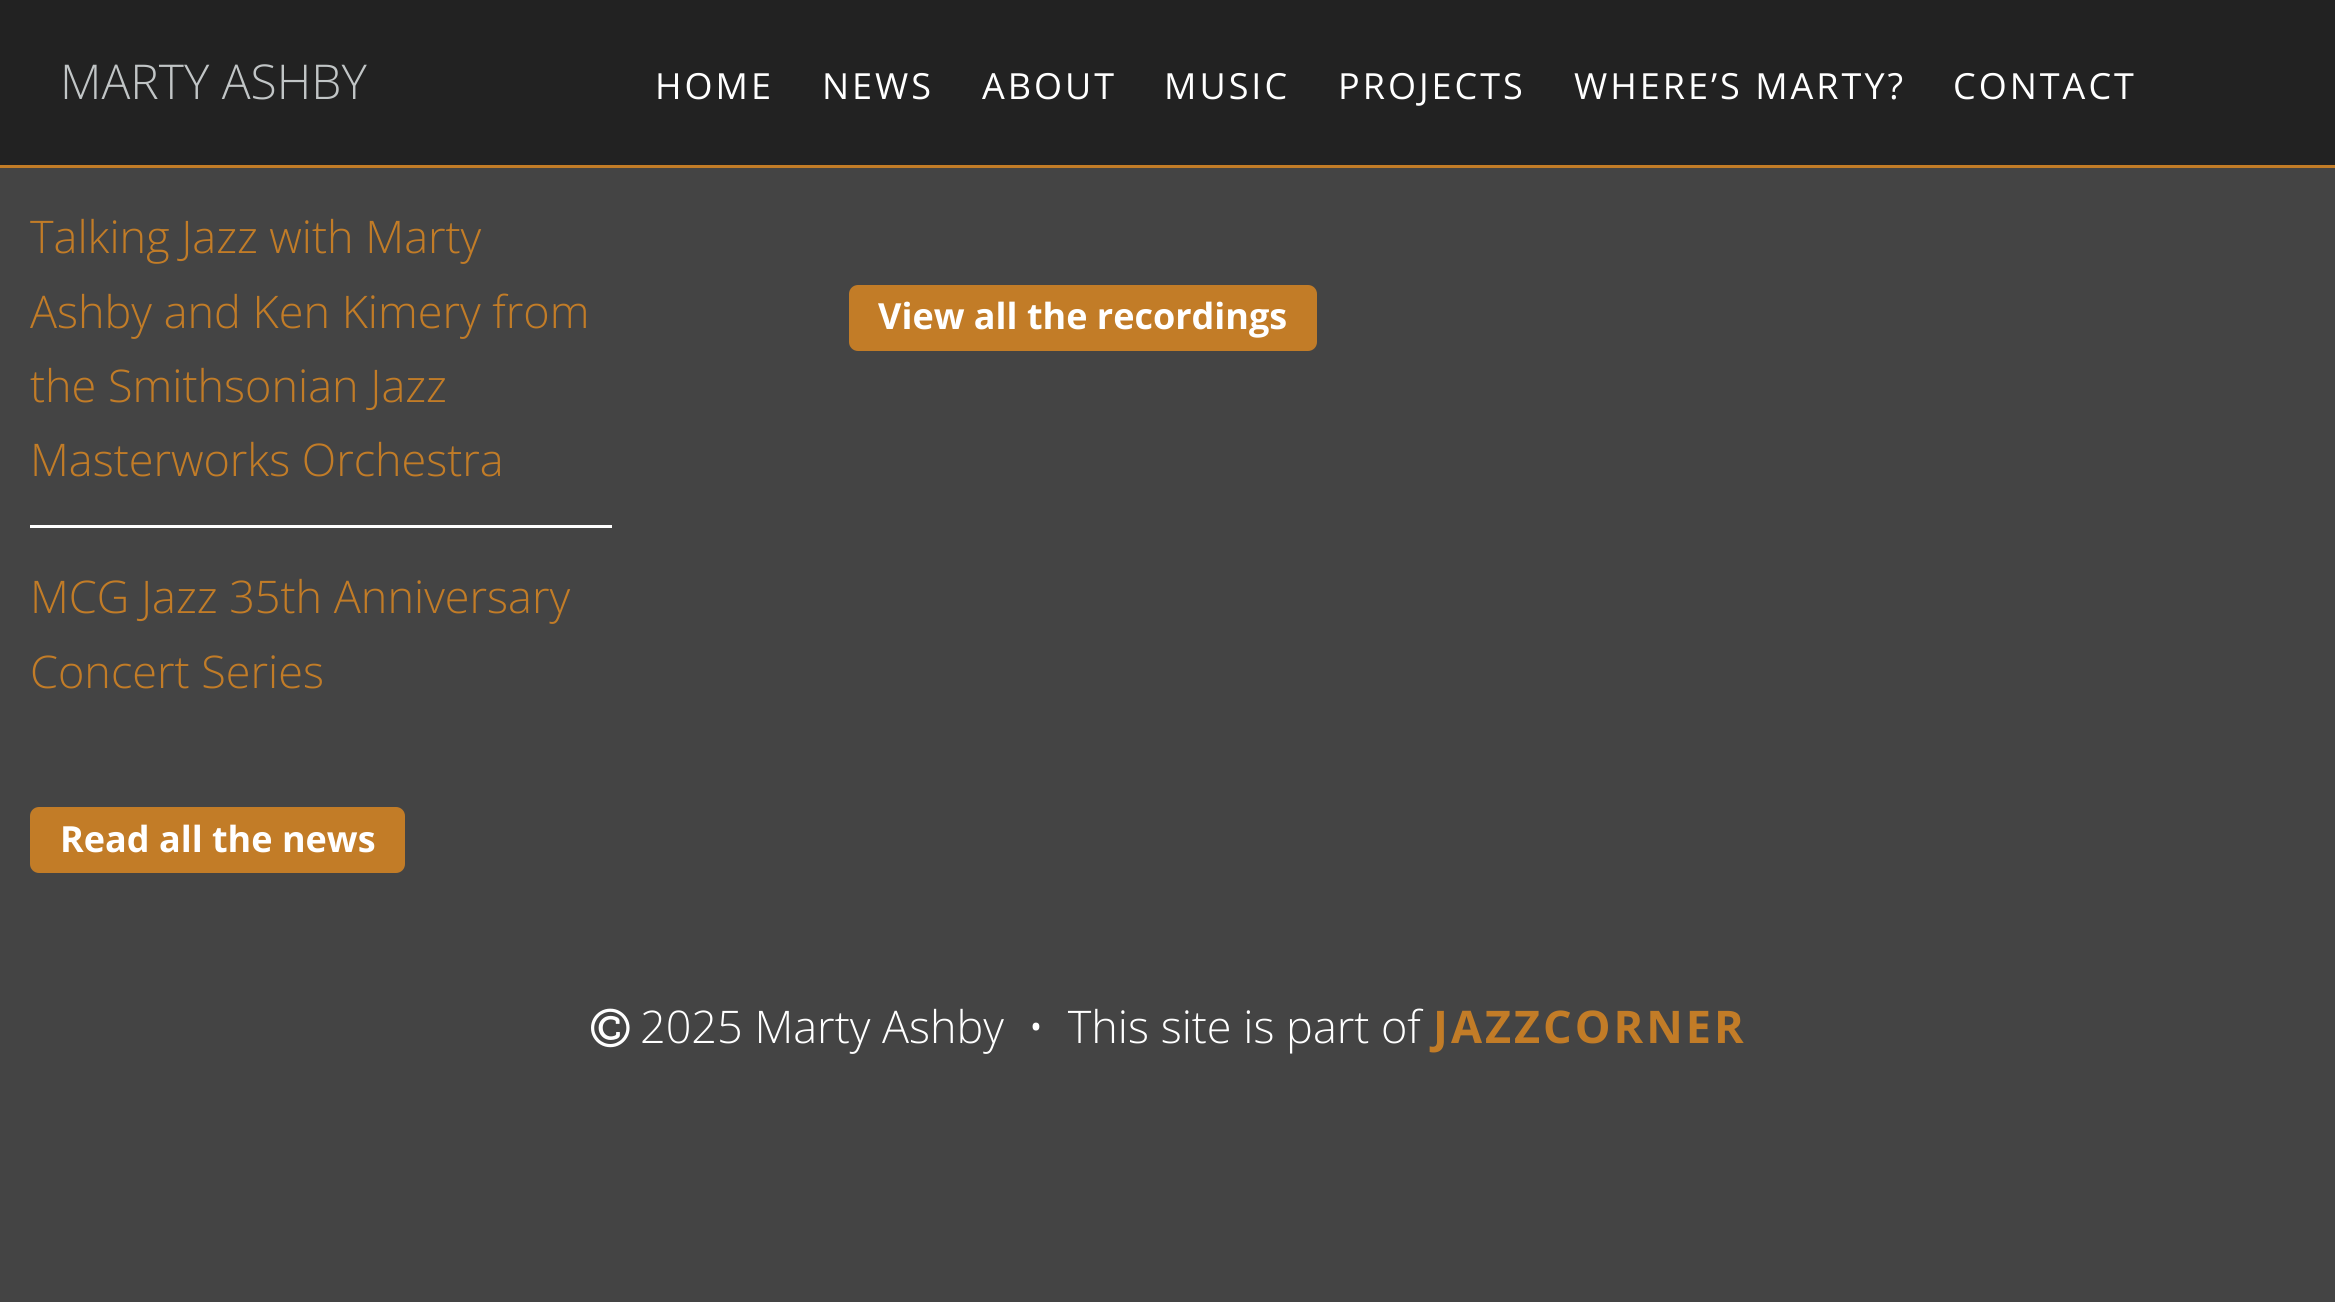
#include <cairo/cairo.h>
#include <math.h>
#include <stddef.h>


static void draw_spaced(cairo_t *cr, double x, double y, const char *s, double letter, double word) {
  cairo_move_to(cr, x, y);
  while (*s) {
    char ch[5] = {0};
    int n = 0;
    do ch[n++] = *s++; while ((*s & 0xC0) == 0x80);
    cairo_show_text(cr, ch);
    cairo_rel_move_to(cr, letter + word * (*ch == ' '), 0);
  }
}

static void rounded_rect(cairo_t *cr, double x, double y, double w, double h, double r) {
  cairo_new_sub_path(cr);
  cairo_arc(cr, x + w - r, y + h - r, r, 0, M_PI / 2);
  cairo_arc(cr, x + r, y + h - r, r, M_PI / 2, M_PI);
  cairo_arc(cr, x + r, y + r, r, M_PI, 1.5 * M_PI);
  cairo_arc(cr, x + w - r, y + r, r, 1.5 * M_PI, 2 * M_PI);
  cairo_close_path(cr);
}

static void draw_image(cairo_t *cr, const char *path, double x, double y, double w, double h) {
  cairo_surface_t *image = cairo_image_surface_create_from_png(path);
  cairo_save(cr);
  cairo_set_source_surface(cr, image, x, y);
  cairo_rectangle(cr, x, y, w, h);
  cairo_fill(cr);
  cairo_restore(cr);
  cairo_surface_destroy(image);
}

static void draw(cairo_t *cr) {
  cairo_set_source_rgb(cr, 68 / 255.0, 68 / 255.0, 68 / 255.0);
  cairo_paint(cr);
  cairo_set_source_rgb(cr, 34 / 255.0, 34 / 255.0, 34 / 255.0);
  cairo_rectangle(cr, 0, 0, 2335, 165);
  cairo_fill(cr);
  cairo_set_source_rgb(cr, 194 / 255.0, 124 / 255.0, 39 / 255.0);
  cairo_rectangle(cr, 0, 165, 2335, 3);
  cairo_fill(cr);
  cairo_set_source_rgb(cr, 1, 1, 1);
  cairo_rectangle(cr, 30, 525, 582, 3);
  cairo_fill(cr);
  cairo_set_source_rgb(cr, 194 / 255.0, 124 / 255.0, 39 / 255.0);
  rounded_rect(cr, 30, 807, 375, 66, 9);
  cairo_fill(cr);
  rounded_rect(cr, 849, 285, 468, 66, 9);
  cairo_fill(cr);
  draw_image(cr, "images/1.png", 591, 1008, 39, 40);
  cairo_select_font_face(cr, "Open Sans Light", CAIRO_FONT_SLANT_NORMAL, CAIRO_FONT_WEIGHT_NORMAL);
  cairo_set_font_size(cr, 48);
  cairo_set_source_rgb(cr, 193 / 255.0, 197 / 255.0, 198 / 255.0);
  cairo_move_to(cr, 60, 99);
  cairo_show_text(cr, "MARTY ASHBY");
  cairo_select_font_face(cr, "Open Sans", CAIRO_FONT_SLANT_NORMAL, CAIRO_FONT_WEIGHT_NORMAL);
  cairo_set_font_size(cr, 36);
  cairo_set_source_rgb(cr, 1, 1, 1);
  draw_spaced(cr, 655, 99, "HOME", 3, 0);
  draw_spaced(cr, 822, 99, "NEWS", 3, 0);
  draw_spaced(cr, 982, 99, "ABOUT", 3, 0);
  draw_spaced(cr, 1164, 99, "MUSIC", 3, 0);
  draw_spaced(cr, 1338, 99, "PROJECTS", 3, 0);
  draw_spaced(cr, 1574, 99, "WHERE’S MARTY?", 3, 0);
  draw_spaced(cr, 1953, 99, "CONTACT", 3, 0);
  cairo_select_font_face(cr, "Open Sans Light", CAIRO_FONT_SLANT_NORMAL, CAIRO_FONT_WEIGHT_NORMAL);
  cairo_set_font_size(cr, 45);
  cairo_set_source_rgb(cr, 194 / 255.0, 124 / 255.0, 39 / 255.0);
  cairo_move_to(cr, 30, 253);
  cairo_show_text(cr, "Talking Jazz with Marty");
  cairo_move_to(cr, 30, 328);
  cairo_show_text(cr, "Ashby and Ken Kimery from");
  cairo_move_to(cr, 30, 402);
  cairo_show_text(cr, "the Smithsonian Jazz");
  cairo_move_to(cr, 30, 476);
  cairo_show_text(cr, "Masterworks Orchestra");
  cairo_move_to(cr, 30, 613);
  cairo_show_text(cr, "MCG Jazz 35th Anniversary");
  cairo_move_to(cr, 30, 688);
  cairo_show_text(cr, "Concert Series");
  cairo_select_font_face(cr, "Open Sans", CAIRO_FONT_SLANT_NORMAL, CAIRO_FONT_WEIGHT_BOLD);
  cairo_set_font_size(cr, 36);
  cairo_set_source_rgb(cr, 1, 1, 1);
  cairo_move_to(cr, 60, 852);
  cairo_show_text(cr, "Read all the news");
  cairo_move_to(cr, 878, 329);
  cairo_show_text(cr, "View all the recordings");
  cairo_select_font_face(cr, "Open Sans Light", CAIRO_FONT_SLANT_NORMAL, CAIRO_FONT_WEIGHT_NORMAL);
  cairo_set_font_size(cr, 45);
  cairo_move_to(cr, 640, 1043);
  cairo_show_text(cr, "2025 Marty Ashby  •  This site is part of");
  cairo_select_font_face(cr, "Open Sans", CAIRO_FONT_SLANT_NORMAL, CAIRO_FONT_WEIGHT_BOLD);
  cairo_set_source_rgb(cr, 194 / 255.0, 124 / 255.0, 39 / 255.0);
  draw_spaced(cr, 1433, 1043, "JAZZCORNER", 3, 0);
}

int main(void) {
  cairo_surface_t *surface = cairo_image_surface_create(CAIRO_FORMAT_RGB24, 2335, 1302);
  cairo_t *cr = cairo_create(surface);
  cairo_font_options_t *options = cairo_font_options_create();
  cairo_font_options_set_hint_metrics(options, CAIRO_HINT_METRICS_OFF);
  cairo_font_options_set_hint_style(options, CAIRO_HINT_STYLE_NONE);
  cairo_set_font_options(cr, options);
  cairo_set_miter_limit(cr, 4);
  draw(cr);
  cairo_surface_write_to_png(surface, "out.png");
  cairo_font_options_destroy(options);
  cairo_destroy(cr);
  cairo_surface_destroy(surface);
  return 0;
}
